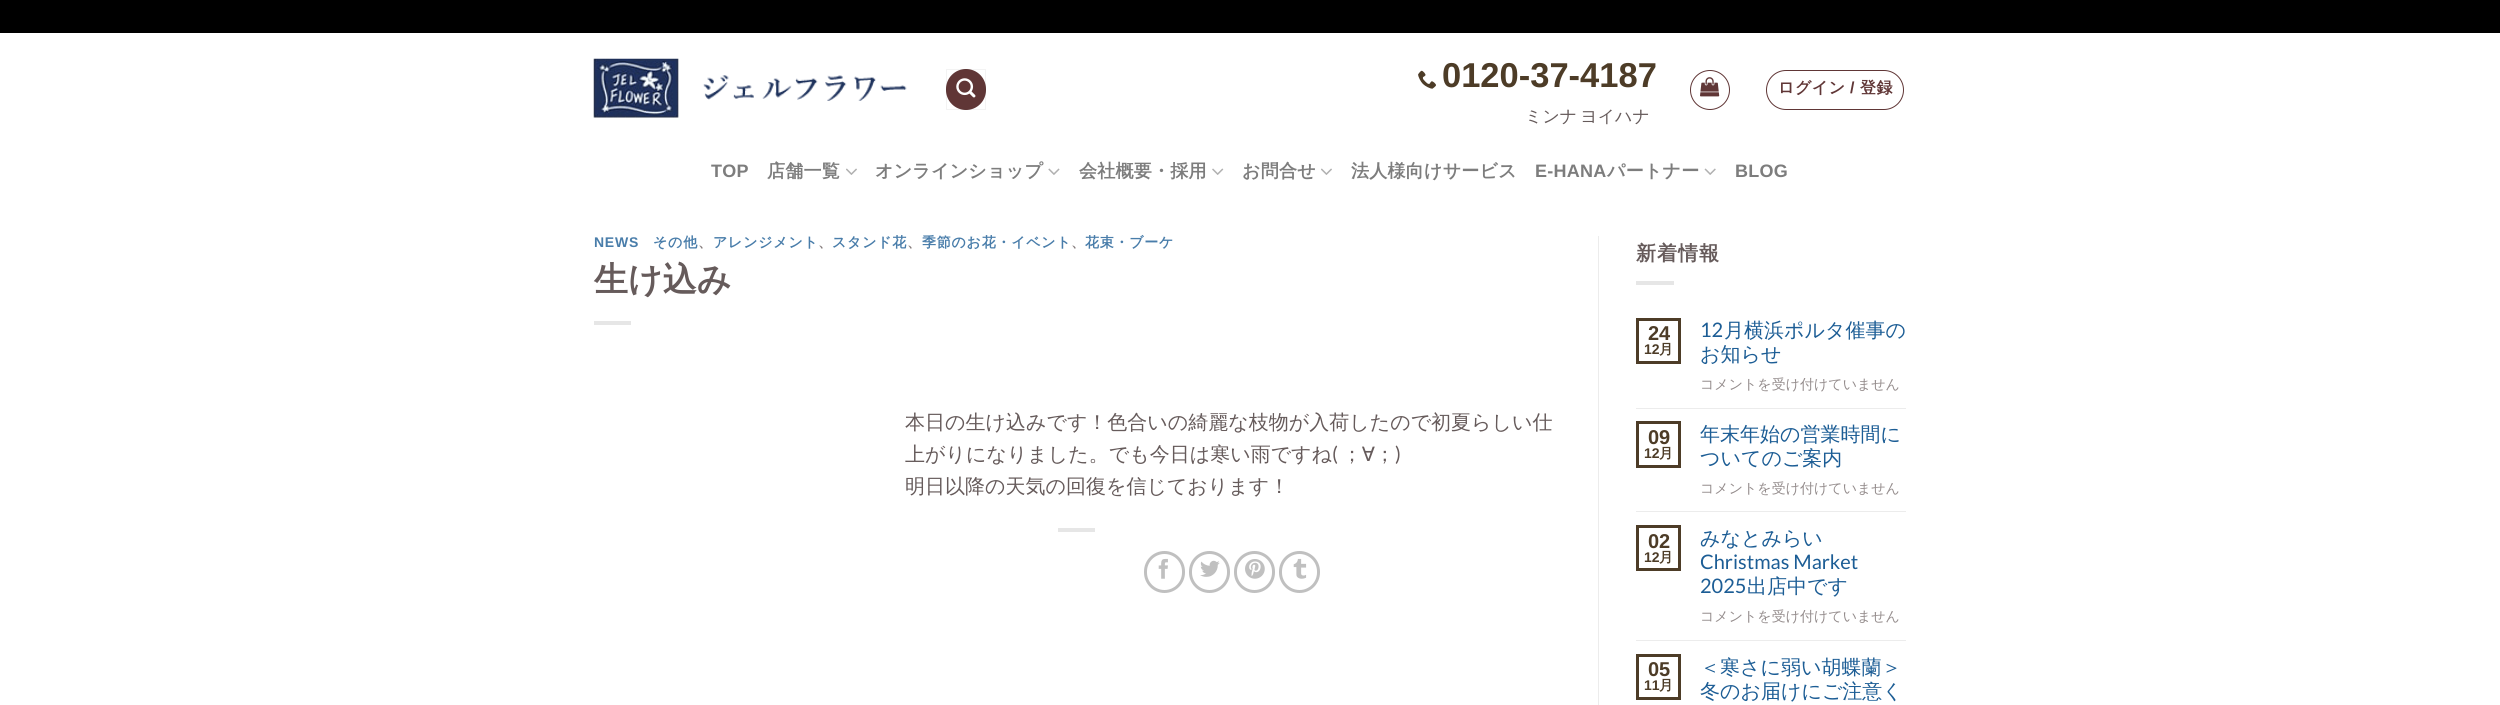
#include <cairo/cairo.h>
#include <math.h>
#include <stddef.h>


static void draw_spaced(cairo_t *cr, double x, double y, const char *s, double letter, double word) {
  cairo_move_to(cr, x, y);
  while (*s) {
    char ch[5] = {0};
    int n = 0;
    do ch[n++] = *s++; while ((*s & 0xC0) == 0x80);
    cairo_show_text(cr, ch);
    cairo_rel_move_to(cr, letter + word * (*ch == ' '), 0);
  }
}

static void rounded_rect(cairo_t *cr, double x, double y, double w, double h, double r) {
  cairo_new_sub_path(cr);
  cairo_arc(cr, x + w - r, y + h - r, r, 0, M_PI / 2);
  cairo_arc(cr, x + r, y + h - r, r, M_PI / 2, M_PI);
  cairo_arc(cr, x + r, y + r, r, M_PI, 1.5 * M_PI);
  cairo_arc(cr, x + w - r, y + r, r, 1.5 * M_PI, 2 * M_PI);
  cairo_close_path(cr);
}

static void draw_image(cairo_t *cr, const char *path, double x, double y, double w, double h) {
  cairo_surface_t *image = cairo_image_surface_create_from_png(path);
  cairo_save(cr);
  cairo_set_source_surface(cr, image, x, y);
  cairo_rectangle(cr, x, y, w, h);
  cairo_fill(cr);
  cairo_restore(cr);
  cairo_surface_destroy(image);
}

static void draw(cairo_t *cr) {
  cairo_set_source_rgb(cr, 0, 0, 0);
  cairo_paint(cr);
  cairo_set_source_rgb(cr, 1, 1, 1);
  cairo_rectangle(cr, 0, 33, 2500, 672);
  cairo_fill(cr);
  draw_image(cr, "images/1.png", 593, 58, 314, 60);
  cairo_set_source_rgb(cr, 96 / 255.0, 54 / 255.0, 54 / 255.0);
  rounded_rect(cr, 946, 69, 40, 41, 20);
  cairo_fill(cr);
  cairo_rectangle(cr, 946.5, 69.5, 39, 40);
  cairo_set_source_rgba(cr, 0, 0, 0, 0.05);
  cairo_set_line_width(cr, 1);
  cairo_stroke(cr);
  draw_image(cr, "images/2.png", 956, 78, 20, 20);
  draw_image(cr, "images/3.png", 1418, 70, 18, 19);
  cairo_arc(cr, 1710, 90, 19.5, 0, 2 * M_PI);
  cairo_set_source_rgb(cr, 96 / 255.0, 54 / 255.0, 54 / 255.0);
  cairo_stroke(cr);
  draw_image(cr, "images/4.png", 1700, 77, 20, 20);
  rounded_rect(cr, 1766.5, 70.5, 137, 39, 19.5);
  cairo_stroke(cr);
  draw_image(cr, "images/5.png", 846, 168, 11, 7);
  draw_image(cr, "images/6.png", 1048, 168, 12, 7);
  draw_image(cr, "images/7.png", 1212, 168, 12, 7);
  draw_image(cr, "images/5.png", 1321, 168, 11, 7);
  draw_image(cr, "images/8.png", 1704, 168, 12, 7);
  cairo_set_source_rgb(cr, 230 / 255.0, 230 / 255.0, 230 / 255.0);
  cairo_rectangle(cr, 594, 321, 37, 4);
  cairo_fill(cr);
  cairo_rectangle(cr, 1058, 528, 37, 4);
  cairo_fill(cr);
  rounded_rect(cr, 1145.5, 552.5, 38, 39, 19);
  cairo_set_source_rgb(cr, 192 / 255.0, 192 / 255.0, 192 / 255.0);
  cairo_set_line_width(cr, 3);
  cairo_stroke(cr);
  draw_image(cr, "images/9.png", 1158, 558, 10, 21);
  rounded_rect(cr, 1190.5, 552.5, 38, 39, 19);
  cairo_stroke(cr);
  draw_image(cr, "images/10.png", 1200, 560, 20, 17);
  rounded_rect(cr, 1235.5, 552.5, 38, 39, 19);
  cairo_stroke(cr);
  draw_image(cr, "images/11.png", 1245, 559, 20, 20);
  rounded_rect(cr, 1280.5, 552.5, 38, 39, 19);
  cairo_stroke(cr);
  draw_image(cr, "images/12.png", 1293, 558, 14, 21);
  cairo_set_source_rgb(cr, 236 / 255.0, 236 / 255.0, 236 / 255.0);
  cairo_rectangle(cr, 1598, 236, 1, 469);
  cairo_fill(cr);
  cairo_set_source_rgb(cr, 230 / 255.0, 230 / 255.0, 230 / 255.0);
  cairo_rectangle(cr, 1636, 281, 38, 4);
  cairo_fill(cr);
  cairo_rectangle(cr, 1637.5, 319.5, 42, 43);
  cairo_set_source_rgb(cr, 77 / 255.0, 60 / 255.0, 39 / 255.0);
  cairo_stroke(cr);
  cairo_set_source_rgb(cr, 236 / 255.0, 236 / 255.0, 236 / 255.0);
  cairo_rectangle(cr, 1636, 408, 270, 1);
  cairo_fill(cr);
  cairo_rectangle(cr, 1637.5, 422.5, 42, 44);
  cairo_set_source_rgb(cr, 77 / 255.0, 60 / 255.0, 39 / 255.0);
  cairo_stroke(cr);
  cairo_set_source_rgb(cr, 236 / 255.0, 236 / 255.0, 236 / 255.0);
  cairo_rectangle(cr, 1636, 511, 270, 1);
  cairo_fill(cr);
  cairo_rectangle(cr, 1637.5, 526.5, 42, 43);
  cairo_set_source_rgb(cr, 77 / 255.0, 60 / 255.0, 39 / 255.0);
  cairo_stroke(cr);
  cairo_set_source_rgb(cr, 236 / 255.0, 236 / 255.0, 236 / 255.0);
  cairo_rectangle(cr, 1636, 640, 270, 1);
  cairo_fill(cr);
  cairo_rectangle(cr, 1637.5, 655.5, 42, 43);
  cairo_set_source_rgb(cr, 77 / 255.0, 60 / 255.0, 39 / 255.0);
  cairo_stroke(cr);
  cairo_select_font_face(cr, "Liberation Sans", CAIRO_FONT_SLANT_NORMAL, CAIRO_FONT_WEIGHT_BOLD);
  cairo_set_font_size(cr, 34.5);
  cairo_move_to(cr, 1442, 87);
  cairo_show_text(cr, "0120-37-4187");
  cairo_select_font_face(cr, "WenQuanYi Zen Hei Medium", CAIRO_FONT_SLANT_NORMAL, CAIRO_FONT_WEIGHT_NORMAL);
  cairo_set_font_size(cr, 17);
  cairo_set_source_rgb(cr, 102 / 255.0, 91 / 255.0, 91 / 255.0);
  draw_spaced(cr, 1525, 122, "ミンナ ヨイハナ", 0, -2);
  cairo_select_font_face(cr, "WenQuanYi Zen Hei", CAIRO_FONT_SLANT_NORMAL, CAIRO_FONT_WEIGHT_BOLD);
  cairo_set_font_size(cr, 16);
  cairo_set_source_rgb(cr, 96 / 255.0, 54 / 255.0, 54 / 255.0);
  draw_spaced(cr, 1778, 93, "ログイン", 0.5, 0);
  cairo_select_font_face(cr, "Liberation Sans", CAIRO_FONT_SLANT_NORMAL, CAIRO_FONT_WEIGHT_BOLD);
  draw_spaced(cr, 1850, 93, "/", 0.5, 0);
  cairo_select_font_face(cr, "WenQuanYi Zen Hei", CAIRO_FONT_SLANT_NORMAL, CAIRO_FONT_WEIGHT_BOLD);
  draw_spaced(cr, 1860, 93, "登録", 0.5, 0);
  cairo_select_font_face(cr, "Liberation Sans", CAIRO_FONT_SLANT_NORMAL, CAIRO_FONT_WEIGHT_BOLD);
  cairo_set_font_size(cr, 18);
  cairo_set_source_rgb(cr, 125 / 255.0, 125 / 255.0, 125 / 255.0);
  draw_spaced(cr, 711, 177, "TOP", 0.25, 0);
  cairo_select_font_face(cr, "WenQuanYi Zen Hei", CAIRO_FONT_SLANT_NORMAL, CAIRO_FONT_WEIGHT_BOLD);
  draw_spaced(cr, 767, 177, "店舗一覧", 0.25, 0);
  draw_spaced(cr, 875, 177, "オンラインショップ", 0.25, 0);
  draw_spaced(cr, 1079, 177, "会社概要・採用", 0.25, 0);
  draw_spaced(cr, 1242, 177, "お問合せ", 0.25, 0);
  draw_spaced(cr, 1351, 177, "法人様向けサービス", 0.25, 0);
  cairo_select_font_face(cr, "Liberation Sans", CAIRO_FONT_SLANT_NORMAL, CAIRO_FONT_WEIGHT_BOLD);
  draw_spaced(cr, 1535, 177, "E-HANA", 0.25, 0);
  cairo_select_font_face(cr, "WenQuanYi Zen Hei", CAIRO_FONT_SLANT_NORMAL, CAIRO_FONT_WEIGHT_BOLD);
  draw_spaced(cr, 1607, 177, "パートナー", 0.25, 0);
  cairo_select_font_face(cr, "Liberation Sans", CAIRO_FONT_SLANT_NORMAL, CAIRO_FONT_WEIGHT_BOLD);
  draw_spaced(cr, 1735, 177, "BLOG", 0.25, 0);
  cairo_set_font_size(cr, 14);
  cairo_set_source_rgb(cr, 73 / 255.0, 125 / 255.0, 170 / 255.0);
  draw_spaced(cr, 594, 247, "NEWS", 0.75, 0);
  cairo_select_font_face(cr, "WenQuanYi Zen Hei", CAIRO_FONT_SLANT_NORMAL, CAIRO_FONT_WEIGHT_BOLD);
  draw_spaced(cr, 653, 247, "その他", 0.75, 0);
  cairo_set_source_rgb(cr, 133 / 255.0, 124 / 255.0, 124 / 255.0);
  draw_spaced(cr, 698, 247, "、", 0.75, 0);
  cairo_set_source_rgb(cr, 73 / 255.0, 125 / 255.0, 170 / 255.0);
  draw_spaced(cr, 713, 247, "アレンジメント", 0.75, 0);
  cairo_set_source_rgb(cr, 133 / 255.0, 124 / 255.0, 124 / 255.0);
  draw_spaced(cr, 818, 247, "、", 0.75, 0);
  cairo_set_source_rgb(cr, 73 / 255.0, 125 / 255.0, 170 / 255.0);
  draw_spaced(cr, 832, 247, "スタンド花", 0.75, 0);
  cairo_set_source_rgb(cr, 133 / 255.0, 124 / 255.0, 124 / 255.0);
  draw_spaced(cr, 907, 247, "、", 0.75, 0);
  cairo_set_source_rgb(cr, 73 / 255.0, 125 / 255.0, 170 / 255.0);
  draw_spaced(cr, 922, 247, "季節のお花・イベント", 0.75, 0);
  cairo_set_source_rgb(cr, 133 / 255.0, 124 / 255.0, 124 / 255.0);
  draw_spaced(cr, 1071, 247, "、", 0.75, 0);
  cairo_set_source_rgb(cr, 73 / 255.0, 125 / 255.0, 170 / 255.0);
  draw_spaced(cr, 1085, 247, "花束・ブーケ", 0.75, 0);
  cairo_set_font_size(cr, 34);
  cairo_set_source_rgb(cr, 102 / 255.0, 91 / 255.0, 91 / 255.0);
  cairo_move_to(cr, 594, 291);
  cairo_show_text(cr, "生け込み");
  cairo_select_font_face(cr, "WenQuanYi Zen Hei Medium", CAIRO_FONT_SLANT_NORMAL, CAIRO_FONT_WEIGHT_NORMAL);
  cairo_set_font_size(cr, 20);
  cairo_move_to(cr, 905, 429);
  cairo_show_text(cr, "本日の生け込みです！色合いの綺麗な枝物が入荷したので初夏らしい仕");
  cairo_move_to(cr, 905, 461);
  cairo_show_text(cr, "上がりになりました。でも今日は寒い雨ですね");
  cairo_select_font_face(cr, "Lato", CAIRO_FONT_SLANT_NORMAL, CAIRO_FONT_WEIGHT_NORMAL);
  cairo_move_to(cr, 1332, 461);
  cairo_show_text(cr, "(");
  cairo_select_font_face(cr, "WenQuanYi Zen Hei Medium", CAIRO_FONT_SLANT_NORMAL, CAIRO_FONT_WEIGHT_NORMAL);
  cairo_move_to(cr, 1342, 461);
  cairo_show_text(cr, "；∀；");
  cairo_select_font_face(cr, "Lato", CAIRO_FONT_SLANT_NORMAL, CAIRO_FONT_WEIGHT_NORMAL);
  cairo_move_to(cr, 1395, 461);
  cairo_show_text(cr, ")");
  cairo_select_font_face(cr, "WenQuanYi Zen Hei Medium", CAIRO_FONT_SLANT_NORMAL, CAIRO_FONT_WEIGHT_NORMAL);
  cairo_move_to(cr, 905, 493);
  cairo_show_text(cr, "明日以降の天気の回復を信じております！");
  cairo_select_font_face(cr, "WenQuanYi Zen Hei", CAIRO_FONT_SLANT_NORMAL, CAIRO_FONT_WEIGHT_BOLD);
  draw_spaced(cr, 1636, 260, "新着情報", 1, 0);
  cairo_select_font_face(cr, "Liberation Sans", CAIRO_FONT_SLANT_NORMAL, CAIRO_FONT_WEIGHT_BOLD);
  cairo_set_source_rgb(cr, 77 / 255.0, 60 / 255.0, 39 / 255.0);
  cairo_move_to(cr, 1648, 340);
  cairo_show_text(cr, "24");
  cairo_set_font_size(cr, 14);
  cairo_move_to(cr, 1644, 354);
  cairo_show_text(cr, "12");
  cairo_select_font_face(cr, "WenQuanYi Zen Hei", CAIRO_FONT_SLANT_NORMAL, CAIRO_FONT_WEIGHT_BOLD);
  cairo_move_to(cr, 1659, 354);
  cairo_show_text(cr, "月");
  cairo_select_font_face(cr, "Lato", CAIRO_FONT_SLANT_NORMAL, CAIRO_FONT_WEIGHT_NORMAL);
  cairo_set_font_size(cr, 20);
  cairo_set_source_rgb(cr, 28 / 255.0, 93 / 255.0, 149 / 255.0);
  cairo_move_to(cr, 1700, 337);
  cairo_show_text(cr, "12");
  cairo_select_font_face(cr, "WenQuanYi Zen Hei Medium", CAIRO_FONT_SLANT_NORMAL, CAIRO_FONT_WEIGHT_NORMAL);
  cairo_move_to(cr, 1724, 337);
  cairo_show_text(cr, "月横浜ポルタ催事の");
  cairo_move_to(cr, 1700, 361);
  cairo_show_text(cr, "お知らせ");
  cairo_set_font_size(cr, 14);
  cairo_set_source_rgb(cr, 148 / 255.0, 140 / 255.0, 140 / 255.0);
  cairo_move_to(cr, 1700, 389);
  cairo_show_text(cr, "コメントを受け付けていません");
  cairo_select_font_face(cr, "Liberation Sans", CAIRO_FONT_SLANT_NORMAL, CAIRO_FONT_WEIGHT_BOLD);
  cairo_set_font_size(cr, 20);
  cairo_set_source_rgb(cr, 77 / 255.0, 60 / 255.0, 39 / 255.0);
  cairo_move_to(cr, 1648, 444);
  cairo_show_text(cr, "09");
  cairo_set_font_size(cr, 14);
  cairo_move_to(cr, 1644, 458);
  cairo_show_text(cr, "12");
  cairo_select_font_face(cr, "WenQuanYi Zen Hei", CAIRO_FONT_SLANT_NORMAL, CAIRO_FONT_WEIGHT_BOLD);
  cairo_move_to(cr, 1659, 458);
  cairo_show_text(cr, "月");
  cairo_select_font_face(cr, "WenQuanYi Zen Hei Medium", CAIRO_FONT_SLANT_NORMAL, CAIRO_FONT_WEIGHT_NORMAL);
  cairo_set_font_size(cr, 20);
  cairo_set_source_rgb(cr, 28 / 255.0, 93 / 255.0, 149 / 255.0);
  cairo_move_to(cr, 1700, 441);
  cairo_show_text(cr, "年末年始の営業時間に");
  cairo_move_to(cr, 1700, 465);
  cairo_show_text(cr, "ついてのご案内");
  cairo_set_font_size(cr, 14);
  cairo_set_source_rgb(cr, 148 / 255.0, 140 / 255.0, 140 / 255.0);
  cairo_move_to(cr, 1700, 493);
  cairo_show_text(cr, "コメントを受け付けていません");
  cairo_select_font_face(cr, "Liberation Sans", CAIRO_FONT_SLANT_NORMAL, CAIRO_FONT_WEIGHT_BOLD);
  cairo_set_font_size(cr, 20);
  cairo_set_source_rgb(cr, 77 / 255.0, 60 / 255.0, 39 / 255.0);
  cairo_move_to(cr, 1648, 548);
  cairo_show_text(cr, "02");
  cairo_set_font_size(cr, 14);
  cairo_move_to(cr, 1644, 562);
  cairo_show_text(cr, "12");
  cairo_select_font_face(cr, "WenQuanYi Zen Hei", CAIRO_FONT_SLANT_NORMAL, CAIRO_FONT_WEIGHT_BOLD);
  cairo_move_to(cr, 1659, 562);
  cairo_show_text(cr, "月");
  cairo_select_font_face(cr, "WenQuanYi Zen Hei Medium", CAIRO_FONT_SLANT_NORMAL, CAIRO_FONT_WEIGHT_NORMAL);
  cairo_set_font_size(cr, 20);
  cairo_set_source_rgb(cr, 28 / 255.0, 93 / 255.0, 149 / 255.0);
  cairo_move_to(cr, 1700, 545);
  cairo_show_text(cr, "みなとみらい");
  cairo_select_font_face(cr, "Lato", CAIRO_FONT_SLANT_NORMAL, CAIRO_FONT_WEIGHT_NORMAL);
  cairo_move_to(cr, 1700, 569);
  cairo_show_text(cr, "Christmas Market");
  cairo_move_to(cr, 1700, 593);
  cairo_show_text(cr, "2025");
  cairo_select_font_face(cr, "WenQuanYi Zen Hei Medium", CAIRO_FONT_SLANT_NORMAL, CAIRO_FONT_WEIGHT_NORMAL);
  cairo_move_to(cr, 1747, 593);
  cairo_show_text(cr, "出店中です");
  cairo_set_font_size(cr, 14);
  cairo_set_source_rgb(cr, 148 / 255.0, 140 / 255.0, 140 / 255.0);
  cairo_move_to(cr, 1700, 621);
  cairo_show_text(cr, "コメントを受け付けていません");
  cairo_select_font_face(cr, "Liberation Sans", CAIRO_FONT_SLANT_NORMAL, CAIRO_FONT_WEIGHT_BOLD);
  cairo_set_font_size(cr, 20);
  cairo_set_source_rgb(cr, 77 / 255.0, 60 / 255.0, 39 / 255.0);
  cairo_move_to(cr, 1648, 676);
  cairo_show_text(cr, "05");
  cairo_set_font_size(cr, 14);
  cairo_move_to(cr, 1644, 690);
  cairo_show_text(cr, "11");
  cairo_select_font_face(cr, "WenQuanYi Zen Hei", CAIRO_FONT_SLANT_NORMAL, CAIRO_FONT_WEIGHT_BOLD);
  cairo_move_to(cr, 1659, 690);
  cairo_show_text(cr, "月");
  cairo_select_font_face(cr, "WenQuanYi Zen Hei Medium", CAIRO_FONT_SLANT_NORMAL, CAIRO_FONT_WEIGHT_NORMAL);
  cairo_set_font_size(cr, 20);
  cairo_set_source_rgb(cr, 28 / 255.0, 93 / 255.0, 149 / 255.0);
  cairo_move_to(cr, 1700, 674);
  cairo_show_text(cr, "＜寒さに弱い胡蝶蘭＞");
  cairo_move_to(cr, 1700, 698);
  cairo_show_text(cr, "冬のお届けにご注意く");
}

int main(void) {
  cairo_surface_t *surface = cairo_image_surface_create(CAIRO_FORMAT_RGB24, 2500, 705);
  cairo_t *cr = cairo_create(surface);
  cairo_font_options_t *options = cairo_font_options_create();
  cairo_font_options_set_hint_metrics(options, CAIRO_HINT_METRICS_OFF);
  cairo_font_options_set_hint_style(options, CAIRO_HINT_STYLE_NONE);
  cairo_set_font_options(cr, options);
  cairo_set_miter_limit(cr, 4);
  draw(cr);
  cairo_surface_write_to_png(surface, "out.png");
  cairo_font_options_destroy(options);
  cairo_destroy(cr);
  cairo_surface_destroy(surface);
  return 0;
}
